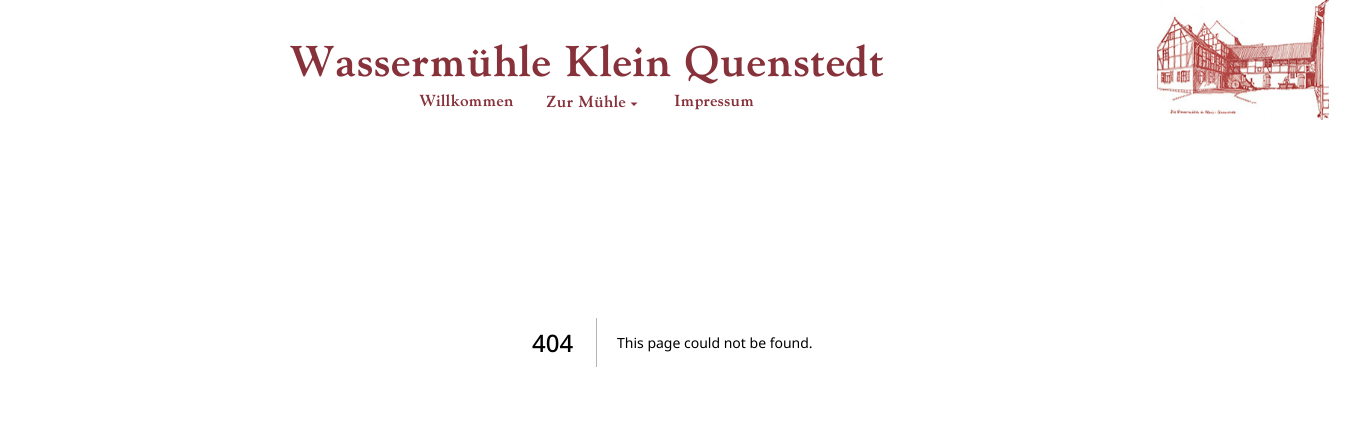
#include <cairo/cairo.h>
#include <math.h>
#include <stddef.h>


static void draw_image(cairo_t *cr, const char *path, double x, double y, double w, double h) {
  cairo_surface_t *image = cairo_image_surface_create_from_png(path);
  cairo_save(cr);
  cairo_set_source_surface(cr, image, x, y);
  cairo_rectangle(cr, x, y, w, h);
  cairo_fill(cr);
  cairo_restore(cr);
  cairo_surface_destroy(image);
}

static void draw(cairo_t *cr) {
  cairo_set_source_rgb(cr, 1, 1, 1);
  cairo_paint(cr);
  cairo_set_source_rgb(cr, 135 / 255.0, 50 / 255.0, 59 / 255.0);
  cairo_new_path(cr);
  cairo_move_to(cr, 630.5, 102.5);
  cairo_line_to(cr, 634, 106);
  cairo_line_to(cr, 637.5, 102.5);
  cairo_close_path(cr);
  cairo_fill(cr);
  draw_image(cr, "images/1.png", 1157, 0, 172, 120);
  cairo_set_source_rgb(cr, 179 / 255.0, 179 / 255.0, 179 / 255.0);
  cairo_rectangle(cr, 596, 318, 1, 49);
  cairo_fill(cr);
  cairo_select_font_face(cr, "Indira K", CAIRO_FONT_SLANT_NORMAL, CAIRO_FONT_WEIGHT_NORMAL);
  cairo_set_font_size(cr, 43);
  cairo_set_source_rgb(cr, 135 / 255.0, 50 / 255.0, 59 / 255.0);
  cairo_move_to(cr, 289, 76);
  cairo_show_text(cr, "Wassermühle Klein Quenstedt");
  cairo_set_font_size(cr, 16);
  cairo_move_to(cr, 419, 106);
  cairo_show_text(cr, "Willkommen");
  cairo_move_to(cr, 546, 107);
  cairo_show_text(cr, "Zur Mühle");
  cairo_move_to(cr, 674, 106);
  cairo_show_text(cr, "Impressum");
  cairo_select_font_face(cr, "Noto Sans Medium", CAIRO_FONT_SLANT_NORMAL, CAIRO_FONT_WEIGHT_NORMAL);
  cairo_set_font_size(cr, 24);
  cairo_set_source_rgb(cr, 0, 0, 0);
  cairo_move_to(cr, 532, 352);
  cairo_show_text(cr, "404");
  cairo_select_font_face(cr, "Noto Sans", CAIRO_FONT_SLANT_NORMAL, CAIRO_FONT_WEIGHT_NORMAL);
  cairo_set_font_size(cr, 14);
  cairo_move_to(cr, 617, 348);
  cairo_show_text(cr, "This page could not be found.");
}

int main(void) {
  cairo_surface_t *surface = cairo_image_surface_create(CAIRO_FORMAT_RGB24, 1345, 437);
  cairo_t *cr = cairo_create(surface);
  cairo_font_options_t *options = cairo_font_options_create();
  cairo_font_options_set_hint_metrics(options, CAIRO_HINT_METRICS_OFF);
  cairo_font_options_set_hint_style(options, CAIRO_HINT_STYLE_NONE);
  cairo_set_font_options(cr, options);
  cairo_set_miter_limit(cr, 4);
  draw(cr);
  cairo_surface_write_to_png(surface, "out.png");
  cairo_font_options_destroy(options);
  cairo_destroy(cr);
  cairo_surface_destroy(surface);
  return 0;
}
